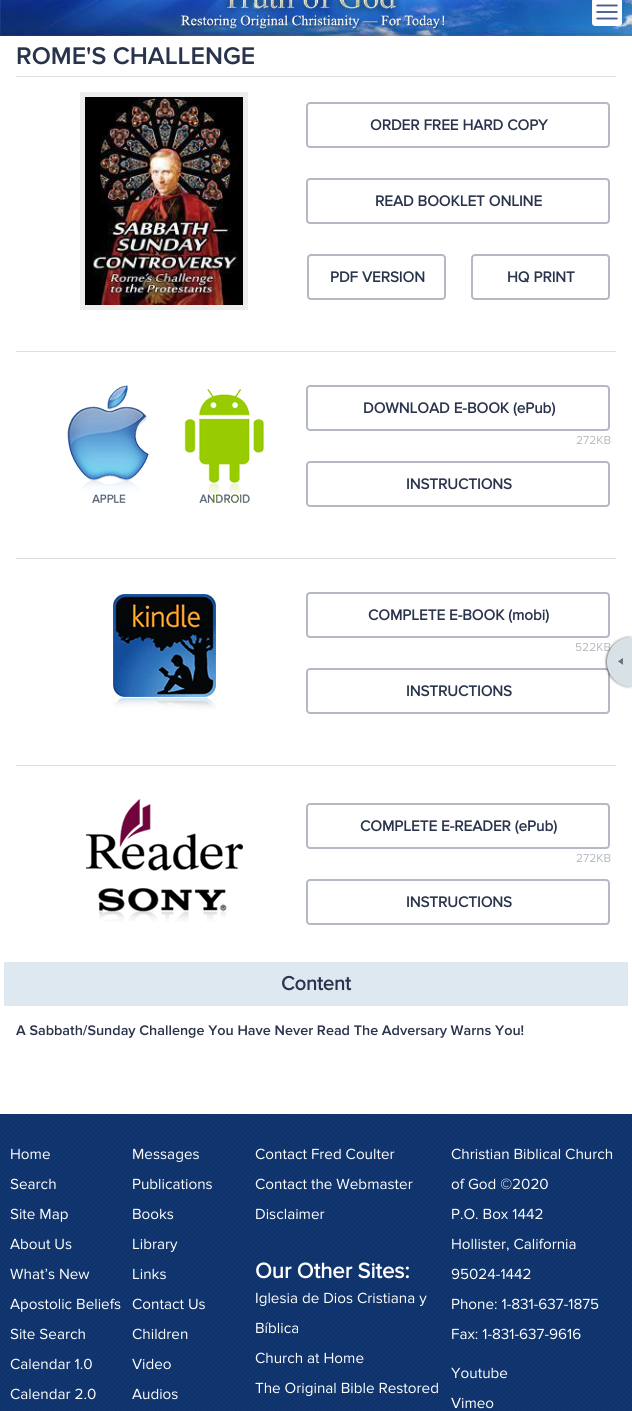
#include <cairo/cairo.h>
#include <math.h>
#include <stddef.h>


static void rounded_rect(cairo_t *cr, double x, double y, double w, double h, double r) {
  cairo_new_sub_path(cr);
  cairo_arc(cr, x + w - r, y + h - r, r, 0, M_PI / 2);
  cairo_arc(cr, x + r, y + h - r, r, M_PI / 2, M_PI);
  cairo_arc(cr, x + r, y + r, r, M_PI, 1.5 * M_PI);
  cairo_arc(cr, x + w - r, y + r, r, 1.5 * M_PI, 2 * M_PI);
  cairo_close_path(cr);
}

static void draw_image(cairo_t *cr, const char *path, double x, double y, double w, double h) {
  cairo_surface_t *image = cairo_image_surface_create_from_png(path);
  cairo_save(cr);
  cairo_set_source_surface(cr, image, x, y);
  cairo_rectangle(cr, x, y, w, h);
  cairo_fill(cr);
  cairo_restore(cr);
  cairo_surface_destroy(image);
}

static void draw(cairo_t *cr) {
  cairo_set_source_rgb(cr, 1, 1, 1);
  cairo_paint(cr);
  draw_image(cr, "images/1.png", 0, 0, 632, 36);
  draw_image(cr, "images/2.png", 181, 0, 264, 30);
  cairo_set_source_rgb(cr, 1, 1, 1);
  rounded_rect(cr, 592, -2, 30, 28, 3);
  cairo_fill(cr);
  draw_image(cr, "images/3.png", 596, 4, 22, 16);
  cairo_set_source_rgb(cr, 222 / 255.0, 222 / 255.0, 222 / 255.0);
  cairo_rectangle(cr, 16, 76, 600, 1);
  cairo_fill(cr);
  cairo_rectangle(cr, 82.5, 94.5, 163, 213);
  cairo_set_source_rgb(cr, 237 / 255.0, 237 / 255.0, 237 / 255.0);
  cairo_set_line_width(cr, 5);
  cairo_stroke(cr);
  draw_image(cr, "images/4.png", 85, 97, 158, 208);
  rounded_rect(cr, 307, 103, 302, 44, 3);
  cairo_set_source_rgb(cr, 180 / 255.0, 185 / 255.0, 195 / 255.0);
  cairo_set_line_width(cr, 2);
  cairo_stroke(cr);
  rounded_rect(cr, 307, 179, 302, 44, 3);
  cairo_stroke(cr);
  rounded_rect(cr, 308, 255, 137, 44, 3);
  cairo_stroke(cr);
  rounded_rect(cr, 472, 255, 137, 44, 3);
  cairo_stroke(cr);
  cairo_set_source_rgb(cr, 222 / 255.0, 222 / 255.0, 222 / 255.0);
  cairo_rectangle(cr, 16, 351, 600, 1);
  cairo_fill(cr);
  draw_image(cr, "images/5.png", 67, 385, 197, 118);
  rounded_rect(cr, 307, 386, 302, 44, 3);
  cairo_set_source_rgb(cr, 180 / 255.0, 185 / 255.0, 195 / 255.0);
  cairo_stroke(cr);
  rounded_rect(cr, 307, 462, 302, 44, 3);
  cairo_stroke(cr);
  cairo_set_source_rgb(cr, 222 / 255.0, 222 / 255.0, 222 / 255.0);
  cairo_rectangle(cr, 16, 558, 600, 1);
  cairo_fill(cr);
  draw_image(cr, "images/6.png", 113, 594, 103, 116);
  rounded_rect(cr, 307, 593, 302, 44, 3);
  cairo_set_source_rgb(cr, 180 / 255.0, 185 / 255.0, 195 / 255.0);
  cairo_stroke(cr);
  rounded_rect(cr, 307, 669, 302, 44, 3);
  cairo_stroke(cr);
  cairo_set_source_rgb(cr, 222 / 255.0, 222 / 255.0, 222 / 255.0);
  cairo_rectangle(cr, 16, 765, 600, 1);
  cairo_fill(cr);
  draw_image(cr, "images/7.png", 86, 799, 157, 123);
  rounded_rect(cr, 307, 804, 302, 44, 3);
  cairo_set_source_rgb(cr, 180 / 255.0, 185 / 255.0, 195 / 255.0);
  cairo_stroke(cr);
  rounded_rect(cr, 307, 880, 302, 44, 3);
  cairo_stroke(cr);
  cairo_set_source_rgb(cr, 221 / 255.0, 232 / 255.0, 241 / 255.0);
  cairo_rectangle(cr, 4, 962, 624, 44);
  cairo_fill(cr);
  draw_image(cr, "images/9.png", 0, 1114, 632, 297);
  cairo_select_font_face(cr, "Proxima Nova SemiBold", CAIRO_FONT_SLANT_NORMAL, CAIRO_FONT_WEIGHT_NORMAL);
  cairo_set_font_size(cr, 25);
  cairo_set_source_rgb(cr, 41 / 255.0, 51 / 255.0, 75 / 255.0);
  cairo_move_to(cr, 16, 64);
  cairo_show_text(cr, "ROME'S CHALLENGE");
  cairo_select_font_face(cr, "Proxima Nova", CAIRO_FONT_SLANT_NORMAL, CAIRO_FONT_WEIGHT_BOLD);
  cairo_set_font_size(cr, 15.25);
  cairo_move_to(cr, 370, 130);
  cairo_show_text(cr, "ORDER FREE HARD COPY");
  cairo_move_to(cr, 375, 206);
  cairo_show_text(cr, "READ BOOKLET ONLINE");
  cairo_move_to(cr, 330, 282);
  cairo_show_text(cr, "PDF VERSION");
  cairo_move_to(cr, 507, 282);
  cairo_show_text(cr, "HQ PRINT");
  cairo_move_to(cr, 363, 413);
  cairo_show_text(cr, "DOWNLOAD E-BOOK (ePub)");
  cairo_select_font_face(cr, "Proxima Nova", CAIRO_FONT_SLANT_NORMAL, CAIRO_FONT_WEIGHT_NORMAL);
  cairo_set_font_size(cr, 12);
  cairo_set_source_rgb(cr, 183 / 255.0, 186 / 255.0, 192 / 255.0);
  cairo_move_to(cr, 576, 444);
  cairo_show_text(cr, "272KB");
  cairo_select_font_face(cr, "Proxima Nova", CAIRO_FONT_SLANT_NORMAL, CAIRO_FONT_WEIGHT_BOLD);
  cairo_set_font_size(cr, 15.25);
  cairo_set_source_rgb(cr, 41 / 255.0, 51 / 255.0, 75 / 255.0);
  cairo_move_to(cr, 406, 489);
  cairo_show_text(cr, "INSTRUCTIONS");
  cairo_move_to(cr, 368, 620);
  cairo_show_text(cr, "COMPLETE E-BOOK (mobi)");
  cairo_select_font_face(cr, "Proxima Nova", CAIRO_FONT_SLANT_NORMAL, CAIRO_FONT_WEIGHT_NORMAL);
  cairo_set_font_size(cr, 12);
  cairo_set_source_rgb(cr, 183 / 255.0, 186 / 255.0, 192 / 255.0);
  cairo_move_to(cr, 575, 651);
  cairo_show_text(cr, "522KB");
  cairo_select_font_face(cr, "Proxima Nova", CAIRO_FONT_SLANT_NORMAL, CAIRO_FONT_WEIGHT_BOLD);
  cairo_set_font_size(cr, 15.25);
  cairo_set_source_rgb(cr, 41 / 255.0, 51 / 255.0, 75 / 255.0);
  cairo_move_to(cr, 406, 696);
  cairo_show_text(cr, "INSTRUCTIONS");
  cairo_move_to(cr, 360, 831);
  cairo_show_text(cr, "COMPLETE E-READER (ePub)");
  cairo_select_font_face(cr, "Proxima Nova", CAIRO_FONT_SLANT_NORMAL, CAIRO_FONT_WEIGHT_NORMAL);
  cairo_set_font_size(cr, 12);
  cairo_set_source_rgb(cr, 183 / 255.0, 186 / 255.0, 192 / 255.0);
  cairo_move_to(cr, 576, 862);
  cairo_show_text(cr, "272KB");
  cairo_select_font_face(cr, "Proxima Nova", CAIRO_FONT_SLANT_NORMAL, CAIRO_FONT_WEIGHT_BOLD);
  cairo_set_font_size(cr, 15.25);
  cairo_set_source_rgb(cr, 41 / 255.0, 51 / 255.0, 75 / 255.0);
  cairo_move_to(cr, 406, 907);
  cairo_show_text(cr, "INSTRUCTIONS");
  cairo_set_font_size(cr, 20);
  cairo_move_to(cr, 281, 990);
  cairo_show_text(cr, "Content");
  cairo_select_font_face(cr, "Proxima Nova SemiBold", CAIRO_FONT_SLANT_NORMAL, CAIRO_FONT_WEIGHT_NORMAL);
  cairo_set_font_size(cr, 14.4);
  cairo_move_to(cr, 16, 1035);
  cairo_show_text(cr, "A Sabbath/Sunday Challenge You Have Never Read The Adversary Warns You!");
  draw_image(cr, "images/8.png", 604, 635, 28, 54);
  cairo_select_font_face(cr, "Proxima Nova", CAIRO_FONT_SLANT_NORMAL, CAIRO_FONT_WEIGHT_NORMAL);
  cairo_set_font_size(cr, 15.25);
  cairo_set_source_rgb(cr, 1, 1, 1);
  cairo_move_to(cr, 10, 1159);
  cairo_show_text(cr, "Home");
  cairo_move_to(cr, 10, 1189);
  cairo_show_text(cr, "Search");
  cairo_move_to(cr, 10, 1219);
  cairo_show_text(cr, "Site Map");
  cairo_move_to(cr, 10, 1249);
  cairo_show_text(cr, "About Us");
  cairo_move_to(cr, 10, 1279);
  cairo_show_text(cr, "What’s New");
  cairo_move_to(cr, 10, 1309);
  cairo_show_text(cr, "Apostolic Beliefs");
  cairo_move_to(cr, 10, 1339);
  cairo_show_text(cr, "Site Search");
  cairo_move_to(cr, 10, 1369);
  cairo_show_text(cr, "Calendar 1.0");
  cairo_move_to(cr, 10, 1399);
  cairo_show_text(cr, "Calendar 2.0");
  cairo_move_to(cr, 132, 1159);
  cairo_show_text(cr, "Messages");
  cairo_move_to(cr, 132, 1189);
  cairo_show_text(cr, "Publications");
  cairo_move_to(cr, 132, 1219);
  cairo_show_text(cr, "Books");
  cairo_move_to(cr, 132, 1249);
  cairo_show_text(cr, "Library");
  cairo_move_to(cr, 132, 1279);
  cairo_show_text(cr, "Links");
  cairo_move_to(cr, 132, 1309);
  cairo_show_text(cr, "Contact Us");
  cairo_move_to(cr, 132, 1339);
  cairo_show_text(cr, "Children");
  cairo_move_to(cr, 132, 1369);
  cairo_show_text(cr, "Video");
  cairo_move_to(cr, 132, 1399);
  cairo_show_text(cr, "Audios");
  cairo_move_to(cr, 255, 1159);
  cairo_show_text(cr, "Contact Fred Coulter");
  cairo_move_to(cr, 255, 1189);
  cairo_show_text(cr, "Contact the Webmaster");
  cairo_move_to(cr, 255, 1219);
  cairo_show_text(cr, "Disclaimer");
  cairo_select_font_face(cr, "Proxima Nova", CAIRO_FONT_SLANT_NORMAL, CAIRO_FONT_WEIGHT_BOLD);
  cairo_set_font_size(cr, 22);
  cairo_move_to(cr, 255, 1278);
  cairo_show_text(cr, "Our Other Sites:");
  cairo_select_font_face(cr, "Proxima Nova", CAIRO_FONT_SLANT_NORMAL, CAIRO_FONT_WEIGHT_NORMAL);
  cairo_set_font_size(cr, 15.25);
  cairo_move_to(cr, 255, 1303);
  cairo_show_text(cr, "Iglesia de Dios Cristiana y");
  cairo_move_to(cr, 255, 1333);
  cairo_show_text(cr, "Bíblica");
  cairo_move_to(cr, 255, 1363);
  cairo_show_text(cr, "Church at Home");
  cairo_move_to(cr, 255, 1393);
  cairo_show_text(cr, "The Original Bible Restored");
  cairo_move_to(cr, 451, 1159);
  cairo_show_text(cr, "Christian Biblical Church");
  cairo_move_to(cr, 451, 1189);
  cairo_show_text(cr, "of God ©2020");
  cairo_move_to(cr, 451, 1219);
  cairo_show_text(cr, "P.O. Box 1442");
  cairo_move_to(cr, 451, 1249);
  cairo_show_text(cr, "Hollister, California");
  cairo_move_to(cr, 451, 1279);
  cairo_show_text(cr, "95024-1442");
  cairo_move_to(cr, 451, 1309);
  cairo_show_text(cr, "Phone: 1-831-637-1875");
  cairo_move_to(cr, 451, 1339);
  cairo_show_text(cr, "Fax: 1-831-637-9616");
  cairo_move_to(cr, 451, 1378);
  cairo_show_text(cr, "Youtube");
  cairo_move_to(cr, 451, 1408);
  cairo_show_text(cr, "Vimeo");
}

int main(void) {
  cairo_surface_t *surface = cairo_image_surface_create(CAIRO_FORMAT_RGB24, 632, 1411);
  cairo_t *cr = cairo_create(surface);
  cairo_font_options_t *options = cairo_font_options_create();
  cairo_font_options_set_hint_metrics(options, CAIRO_HINT_METRICS_OFF);
  cairo_font_options_set_hint_style(options, CAIRO_HINT_STYLE_NONE);
  cairo_set_font_options(cr, options);
  cairo_set_miter_limit(cr, 4);
  draw(cr);
  cairo_surface_write_to_png(surface, "out.png");
  cairo_font_options_destroy(options);
  cairo_destroy(cr);
  cairo_surface_destroy(surface);
  return 0;
}
